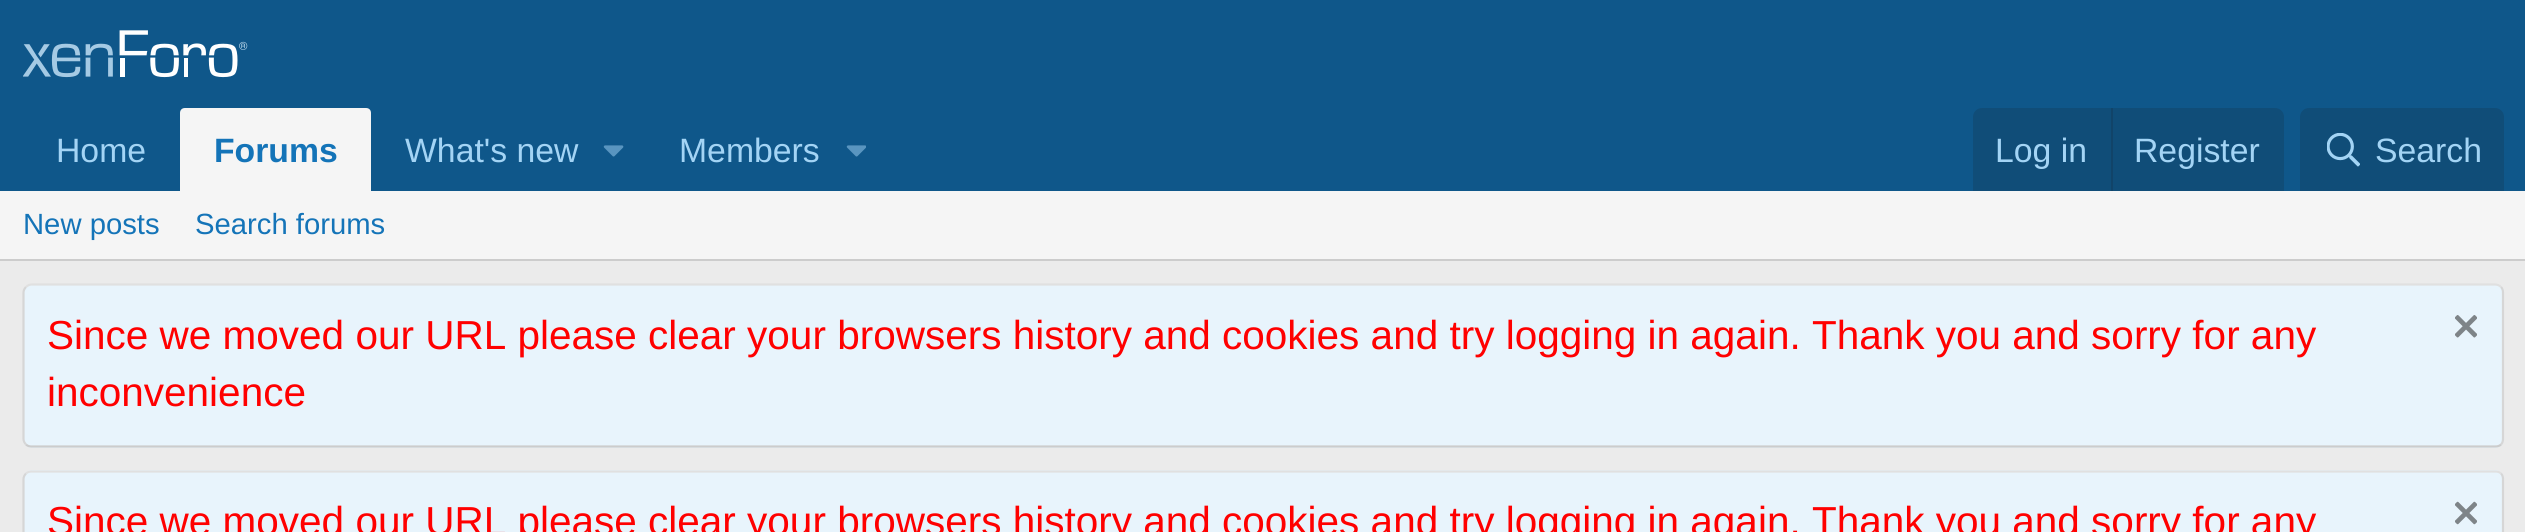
#include <cairo/cairo.h>
#include <math.h>
#include <stddef.h>


static void rounded_rect(cairo_t *cr, double x, double y, double w, double h, double r) {
  cairo_new_sub_path(cr);
  cairo_arc(cr, x + w - r, y + h - r, r, 0, M_PI / 2);
  cairo_arc(cr, x + r, y + h - r, r, M_PI / 2, M_PI);
  cairo_arc(cr, x + r, y + r, r, M_PI, 1.5 * M_PI);
  cairo_arc(cr, x + w - r, y + r, r, 1.5 * M_PI, 2 * M_PI);
  cairo_close_path(cr);
}

static void draw_image(cairo_t *cr, const char *path, double x, double y, double w, double h) {
  cairo_surface_t *image = cairo_image_surface_create_from_png(path);
  cairo_save(cr);
  cairo_set_source_surface(cr, image, x, y);
  cairo_rectangle(cr, x, y, w, h);
  cairo_fill(cr);
  cairo_restore(cr);
  cairo_surface_destroy(image);
}

static void draw(cairo_t *cr) {
  cairo_set_source_rgb(cr, 235 / 255.0, 235 / 255.0, 235 / 255.0);
  cairo_paint(cr);
  cairo_set_source_rgb(cr, 15 / 255.0, 87 / 255.0, 138 / 255.0);
  cairo_rectangle(cr, 0, 0, 2525, 191);
  cairo_fill(cr);
  draw_image(cr, "images/1.png", 23, 30, 225, 48);
  cairo_set_source_rgb(cr, 245 / 255.0, 245 / 255.0, 245 / 255.0);
  cairo_new_path(cr);
  cairo_move_to(cr, 185, 108);
  cairo_line_to(cr, 366, 108);
  cairo_curve_to(cr, 369, 108, 371, 110, 371, 113);
  cairo_line_to(cr, 371, 191);
  cairo_line_to(cr, 180, 191);
  cairo_line_to(cr, 180, 113);
  cairo_curve_to(cr, 180, 110, 182, 108, 185, 108);
  cairo_close_path(cr);
  cairo_fill(cr);
  draw_image(cr, "images/2.png", 603, 145, 21, 12);
  draw_image(cr, "images/3.png", 846, 145, 20, 12);
  cairo_set_source_rgb(cr, 16 / 255.0, 77 / 255.0, 120 / 255.0);
  cairo_new_path(cr);
  cairo_move_to(cr, 1982, 108);
  cairo_line_to(cr, 2275, 108);
  cairo_curve_to(cr, 2280, 108, 2284, 112, 2284, 117);
  cairo_line_to(cr, 2284, 191);
  cairo_line_to(cr, 1973, 191);
  cairo_line_to(cr, 1973, 117);
  cairo_curve_to(cr, 1973, 112, 1977, 108, 1982, 108);
  cairo_close_path(cr);
  cairo_fill(cr);
  cairo_set_source_rgb(cr, 17 / 255.0, 68 / 255.0, 105 / 255.0);
  cairo_rectangle(cr, 2111, 108, 2, 83);
  cairo_fill(cr);
  cairo_set_source_rgb(cr, 16 / 255.0, 77 / 255.0, 120 / 255.0);
  cairo_new_path(cr);
  cairo_move_to(cr, 2309, 108);
  cairo_line_to(cr, 2495, 108);
  cairo_curve_to(cr, 2500, 108, 2504, 112, 2504, 117);
  cairo_line_to(cr, 2504, 191);
  cairo_line_to(cr, 2300, 191);
  cairo_line_to(cr, 2300, 117);
  cairo_curve_to(cr, 2300, 112, 2304, 108, 2309, 108);
  cairo_close_path(cr);
  cairo_fill(cr);
  draw_image(cr, "images/4.png", 2327, 133, 33, 34);
  cairo_set_source_rgb(cr, 245 / 255.0, 245 / 255.0, 245 / 255.0);
  cairo_rectangle(cr, 0, 191, 2525, 68);
  cairo_fill(cr);
  cairo_set_source_rgb(cr, 204 / 255.0, 204 / 255.0, 204 / 255.0);
  cairo_rectangle(cr, 0, 259, 2525, 2);
  cairo_fill(cr);
  cairo_set_source_rgb(cr, 232 / 255.0, 244 / 255.0, 252 / 255.0);
  rounded_rect(cr, 23, 284, 2481, 164, 9);
  cairo_fill(cr);
  cairo_new_path(cr);
  cairo_move_to(cr, 26, 287);
  cairo_curve_to(cr, 27.5, 285.5, 29.5, 284.5, 31.5, 284.5);
  cairo_line_to(cr, 2495, 284.5);
  cairo_curve_to(cr, 2497.5, 284.5, 2499.5, 285.5, 2501, 287);
  cairo_set_source_rgb(cr, 224 / 255.0, 224 / 255.0, 224 / 255.0);
  cairo_set_line_width(cr, 2.2);
  cairo_stroke(cr);
  cairo_new_path(cr);
  cairo_move_to(cr, 2501, 287);
  cairo_curve_to(cr, 2502.5, 288.5, 2503, 290.5, 2503, 292.5);
  cairo_line_to(cr, 2503, 439);
  cairo_curve_to(cr, 2503, 441, 2502.5, 443, 2501, 444.5);
  cairo_set_source_rgb(cr, 214 / 255.0, 214 / 255.0, 214 / 255.0);
  cairo_stroke(cr);
  cairo_new_path(cr);
  cairo_move_to(cr, 2501, 444.5);
  cairo_curve_to(cr, 2499.5, 446, 2497.5, 446.5, 2495, 446.5);
  cairo_line_to(cr, 31.5, 446.5);
  cairo_curve_to(cr, 29.5, 446.5, 27.5, 446, 26, 444.5);
  cairo_set_source_rgb(cr, 204 / 255.0, 204 / 255.0, 204 / 255.0);
  cairo_stroke(cr);
  cairo_new_path(cr);
  cairo_move_to(cr, 26, 444.5);
  cairo_curve_to(cr, 24.5, 443, 23.5, 441, 23.5, 439);
  cairo_line_to(cr, 23.5, 292.5);
  cairo_curve_to(cr, 23.5, 290.5, 24.5, 288.5, 26, 287);
  cairo_set_source_rgb(cr, 214 / 255.0, 214 / 255.0, 214 / 255.0);
  cairo_stroke(cr);
  draw_image(cr, "images/5.png", 2455, 315, 22, 23);
  cairo_set_source_rgb(cr, 232 / 255.0, 244 / 255.0, 252 / 255.0);
  rounded_rect(cr, 23, 470, 2481, 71, 9);
  cairo_fill(cr);
  cairo_new_path(cr);
  cairo_move_to(cr, 26, 473.5);
  cairo_curve_to(cr, 27.5, 472, 29.5, 471.5, 31.5, 471.5);
  cairo_line_to(cr, 2495, 471.5);
  cairo_curve_to(cr, 2497.5, 471.5, 2499.5, 472, 2501, 473.5);
  cairo_set_source_rgb(cr, 224 / 255.0, 224 / 255.0, 224 / 255.0);
  cairo_stroke(cr);
  cairo_new_path(cr);
  cairo_move_to(cr, 2501, 473.5);
  cairo_curve_to(cr, 2502.5, 475, 2503, 477, 2503, 479);
  cairo_line_to(cr, 2503, 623);
  cairo_curve_to(cr, 2503, 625.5, 2502.5, 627.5, 2501, 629);
  cairo_set_source_rgb(cr, 214 / 255.0, 214 / 255.0, 214 / 255.0);
  cairo_stroke(cr);
  cairo_new_path(cr);
  cairo_move_to(cr, 26, 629);
  cairo_curve_to(cr, 24.5, 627.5, 23.5, 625.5, 23.5, 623);
  cairo_line_to(cr, 23.5, 479);
  cairo_curve_to(cr, 23.5, 477, 24.5, 475, 26, 473.5);
  cairo_stroke(cr);
  draw_image(cr, "images/6.png", 2455, 501, 22, 24);
  cairo_select_font_face(cr, "Liberation Sans", CAIRO_FONT_SLANT_NORMAL, CAIRO_FONT_WEIGHT_NORMAL);
  cairo_set_font_size(cr, 33.75);
  cairo_set_source_rgb(cr, 163 / 255.0, 212 / 255.0, 245 / 255.0);
  cairo_move_to(cr, 56, 162);
  cairo_show_text(cr, "Home");
  cairo_select_font_face(cr, "Liberation Sans", CAIRO_FONT_SLANT_NORMAL, CAIRO_FONT_WEIGHT_BOLD);
  cairo_set_source_rgb(cr, 20 / 255.0, 116 / 255.0, 184 / 255.0);
  cairo_move_to(cr, 214, 162);
  cairo_show_text(cr, "Forums");
  cairo_select_font_face(cr, "Liberation Sans", CAIRO_FONT_SLANT_NORMAL, CAIRO_FONT_WEIGHT_NORMAL);
  cairo_set_source_rgb(cr, 163 / 255.0, 212 / 255.0, 245 / 255.0);
  cairo_move_to(cr, 405, 162);
  cairo_show_text(cr, "What's new");
  cairo_move_to(cr, 679, 162);
  cairo_show_text(cr, "Members");
  cairo_move_to(cr, 1995, 162);
  cairo_show_text(cr, "Log in");
  cairo_move_to(cr, 2134, 162);
  cairo_show_text(cr, "Register");
  cairo_move_to(cr, 2375, 162);
  cairo_show_text(cr, "Search");
  cairo_set_font_size(cr, 29.25);
  cairo_set_source_rgb(cr, 20 / 255.0, 116 / 255.0, 184 / 255.0);
  cairo_move_to(cr, 23, 234);
  cairo_show_text(cr, "New posts");
  cairo_move_to(cr, 195, 234);
  cairo_show_text(cr, "Search forums");
  cairo_set_font_size(cr, 40.5);
  cairo_set_source_rgb(cr, 1, 0, 0);
  cairo_move_to(cr, 47, 349);
  cairo_show_text(cr, "Since we moved our URL please clear your browsers history and cookies and try logging in again. Thank you and sorry for any");
  cairo_move_to(cr, 47, 406);
  cairo_show_text(cr, "inconvenience");
  cairo_move_to(cr, 47, 535);
  cairo_show_text(cr, "Since we moved our URL please clear your browsers history and cookies and try logging in again. Thank you and sorry for any");
}

int main(void) {
  cairo_surface_t *surface = cairo_image_surface_create(CAIRO_FORMAT_RGB24, 2525, 532);
  cairo_t *cr = cairo_create(surface);
  cairo_font_options_t *options = cairo_font_options_create();
  cairo_font_options_set_hint_metrics(options, CAIRO_HINT_METRICS_OFF);
  cairo_font_options_set_hint_style(options, CAIRO_HINT_STYLE_NONE);
  cairo_set_font_options(cr, options);
  cairo_set_miter_limit(cr, 4);
  draw(cr);
  cairo_surface_write_to_png(surface, "out.png");
  cairo_font_options_destroy(options);
  cairo_destroy(cr);
  cairo_surface_destroy(surface);
  return 0;
}
